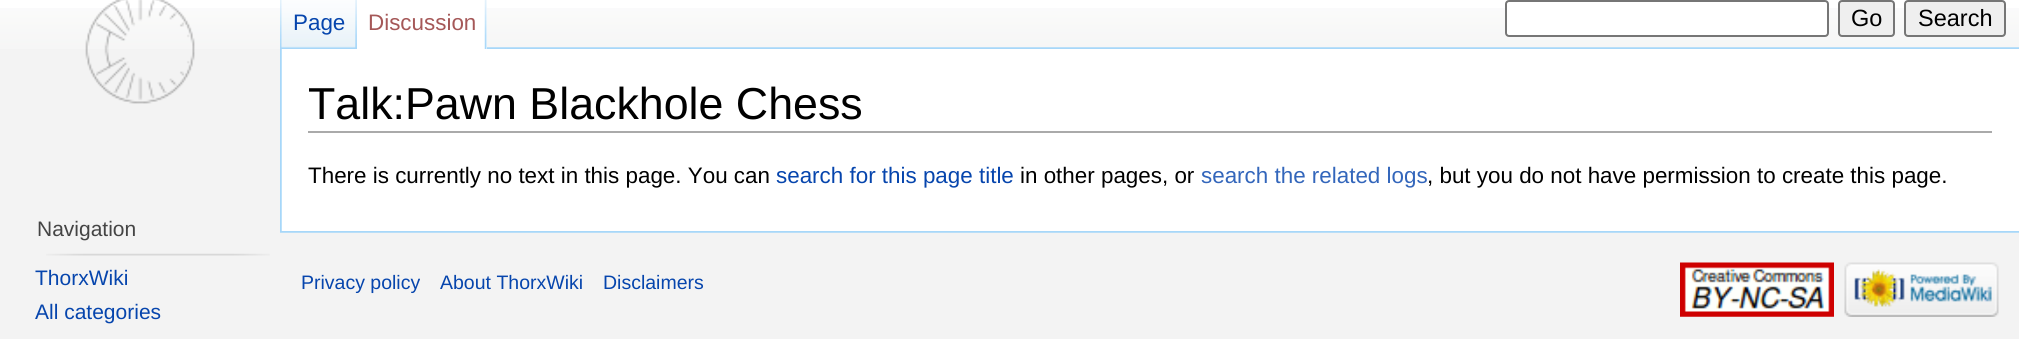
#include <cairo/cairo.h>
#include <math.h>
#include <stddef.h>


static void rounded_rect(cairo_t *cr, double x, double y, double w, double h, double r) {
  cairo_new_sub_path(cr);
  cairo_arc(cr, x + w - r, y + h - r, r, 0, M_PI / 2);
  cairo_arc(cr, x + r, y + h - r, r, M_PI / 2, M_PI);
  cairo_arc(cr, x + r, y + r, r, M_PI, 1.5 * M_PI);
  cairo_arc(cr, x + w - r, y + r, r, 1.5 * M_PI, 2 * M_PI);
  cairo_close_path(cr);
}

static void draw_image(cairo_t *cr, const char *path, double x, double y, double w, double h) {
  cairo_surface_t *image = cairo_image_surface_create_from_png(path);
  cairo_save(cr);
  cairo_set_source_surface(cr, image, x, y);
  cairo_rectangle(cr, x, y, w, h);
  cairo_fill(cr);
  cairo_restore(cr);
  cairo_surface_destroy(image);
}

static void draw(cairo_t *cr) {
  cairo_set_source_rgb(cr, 243 / 255.0, 243 / 255.0, 243 / 255.0);
  cairo_paint(cr);
  cairo_set_source_rgb(cr, 1, 1, 1);
  cairo_rectangle(cr, 0, 0, 2019, 8);
  cairo_fill(cr);
  draw_image(cr, "images/1.png", 0, 8, 2019, 41);
  draw_image(cr, "images/6.png", 280, 47, 1739, 2);
  draw_image(cr, "images/2.png", 280, 0, 2, 48);
  draw_image(cr, "images/3.png", 281, 0, 76, 49);
  draw_image(cr, "images/4.png", 355, 0, 2, 48);
  cairo_rectangle(cr, 357, 8, 130, 41);
  cairo_fill(cr);
  draw_image(cr, "images/5.png", 484, 0, 3, 49);
  rounded_rect(cr, 1506, 1, 322, 35, 3);
  cairo_fill_preserve(cr);
  cairo_set_source_rgb(cr, 118 / 255.0, 118 / 255.0, 118 / 255.0);
  cairo_stroke(cr);
  cairo_set_source_rgb(cr, 239 / 255.0, 239 / 255.0, 239 / 255.0);
  rounded_rect(cr, 1839, 1, 55, 35, 3);
  cairo_fill_preserve(cr);
  cairo_set_source_rgb(cr, 118 / 255.0, 118 / 255.0, 118 / 255.0);
  cairo_stroke(cr);
  cairo_set_source_rgb(cr, 239 / 255.0, 239 / 255.0, 239 / 255.0);
  rounded_rect(cr, 1905, 1, 100, 35, 3);
  cairo_fill_preserve(cr);
  cairo_set_source_rgb(cr, 118 / 255.0, 118 / 255.0, 118 / 255.0);
  cairo_stroke(cr);
  cairo_set_source_rgb(cr, 1, 1, 1);
  cairo_rectangle(cr, 281, 49, 1738, 182);
  cairo_fill(cr);
  draw_image(cr, "images/7.png", 280, 49, 2, 182);
  cairo_set_source_rgb(cr, 170 / 255.0, 170 / 255.0, 170 / 255.0);
  cairo_rectangle(cr, 308, 131, 1684, 2);
  cairo_fill(cr);
  draw_image(cr, "images/8.png", 85, 0, 110, 104);
  draw_image(cr, "images/9.png", 46, 253, 224, 3);
  draw_image(cr, "images/10.png", 280, 231, 1739, 2);
  draw_image(cr, "images/11.png", 1680, 262, 154, 55);
  draw_image(cr, "images/12.png", 1844, 262, 155, 55);
  cairo_select_font_face(cr, "Liberation Sans", CAIRO_FONT_SLANT_NORMAL, CAIRO_FONT_WEIGHT_NORMAL);
  cairo_set_font_size(cr, 22.4);
  cairo_set_source_rgb(cr, 6 / 255.0, 69 / 255.0, 173 / 255.0);
  cairo_move_to(cr, 293, 30);
  cairo_show_text(cr, "Page");
  cairo_set_source_rgb(cr, 165 / 255.0, 88 / 255.0, 88 / 255.0);
  cairo_move_to(cr, 368, 30);
  cairo_show_text(cr, "Discussion");
  cairo_set_font_size(cr, 23.5);
  cairo_set_source_rgb(cr, 0, 0, 0);
  cairo_move_to(cr, 1851, 26);
  cairo_show_text(cr, "Go");
  cairo_move_to(cr, 1918, 26);
  cairo_show_text(cr, "Search");
  cairo_set_font_size(cr, 44.75);
  cairo_move_to(cr, 308, 119);
  cairo_show_text(cr, "Talk:Pawn Blackhole Chess");
  cairo_set_font_size(cr, 22.4);
  cairo_move_to(cr, 308, 183);
  cairo_show_text(cr, "There is currently no text in this page. You can");
  cairo_set_source_rgb(cr, 6 / 255.0, 69 / 255.0, 173 / 255.0);
  cairo_move_to(cr, 776, 183);
  cairo_show_text(cr, "search for this page title");
  cairo_set_source_rgb(cr, 0, 0, 0);
  cairo_move_to(cr, 1020, 183);
  cairo_show_text(cr, "in other pages, or");
  cairo_set_source_rgb(cr, 51 / 255.0, 102 / 255.0, 187 / 255.0);
  cairo_move_to(cr, 1201, 183);
  cairo_show_text(cr, "search the related logs");
  cairo_set_source_rgb(cr, 0, 0, 0);
  cairo_move_to(cr, 1427, 183);
  cairo_show_text(cr, ", but you do not have permission to create this page.");
  cairo_set_font_size(cr, 21);
  cairo_set_source_rgb(cr, 68 / 255.0, 68 / 255.0, 68 / 255.0);
  cairo_move_to(cr, 37, 236);
  cairo_show_text(cr, "Navigation");
  cairo_set_source_rgb(cr, 6 / 255.0, 69 / 255.0, 173 / 255.0);
  cairo_move_to(cr, 35, 285);
  cairo_show_text(cr, "ThorxWiki");
  cairo_move_to(cr, 35, 319);
  cairo_show_text(cr, "All categories");
  cairo_set_font_size(cr, 19.5);
  cairo_move_to(cr, 301, 289);
  cairo_show_text(cr, "Privacy policy");
  cairo_move_to(cr, 440, 289);
  cairo_show_text(cr, "About ThorxWiki");
  cairo_move_to(cr, 603, 289);
  cairo_show_text(cr, "Disclaimers");
}

int main(void) {
  cairo_surface_t *surface = cairo_image_surface_create(CAIRO_FORMAT_RGB24, 2019, 339);
  cairo_t *cr = cairo_create(surface);
  cairo_font_options_t *options = cairo_font_options_create();
  cairo_font_options_set_hint_metrics(options, CAIRO_HINT_METRICS_OFF);
  cairo_font_options_set_hint_style(options, CAIRO_HINT_STYLE_NONE);
  cairo_set_font_options(cr, options);
  cairo_set_miter_limit(cr, 4);
  draw(cr);
  cairo_surface_write_to_png(surface, "out.png");
  cairo_font_options_destroy(options);
  cairo_destroy(cr);
  cairo_surface_destroy(surface);
  return 0;
}
